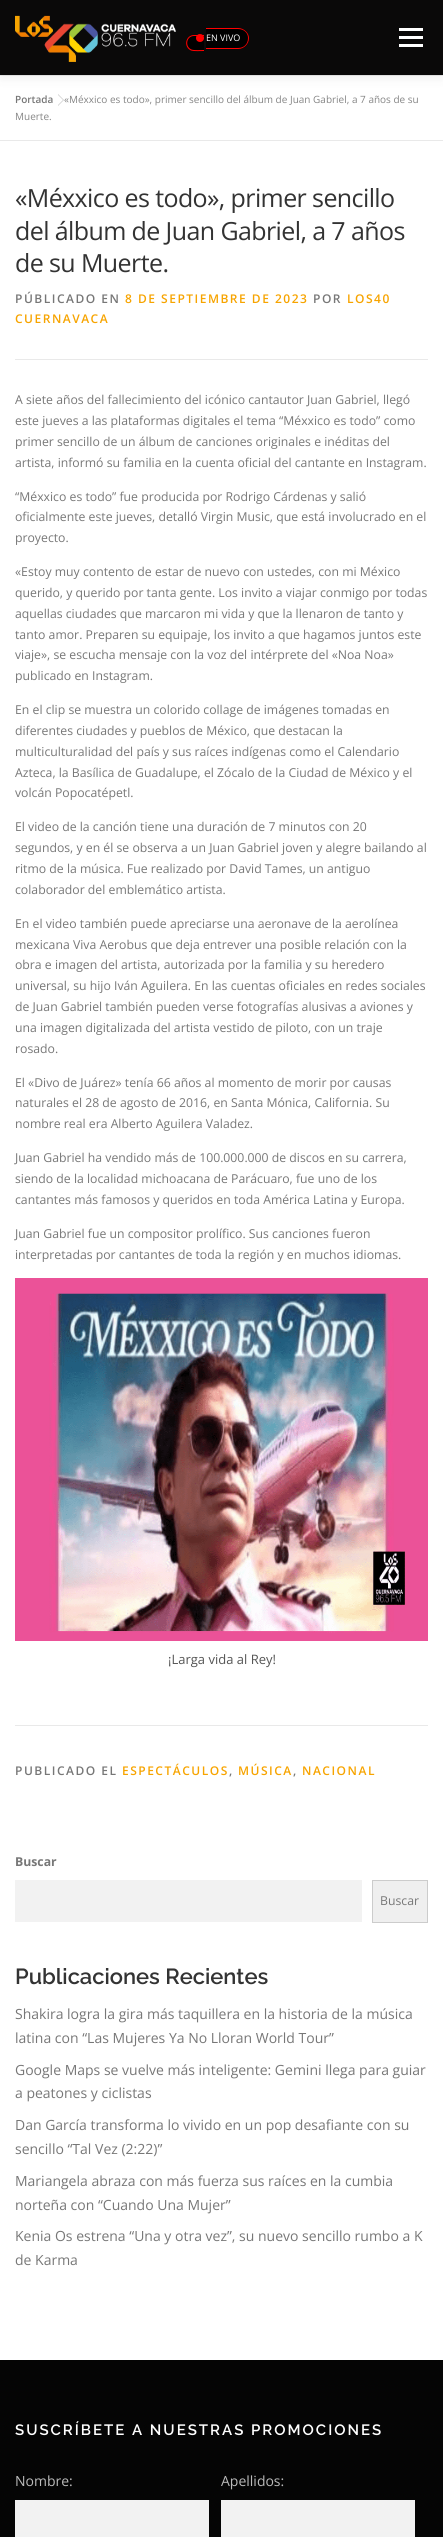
#include <cairo/cairo.h>
#include <math.h>
#include <stddef.h>


static void draw_spaced(cairo_t *cr, double x, double y, const char *s, double letter, double word) {
  cairo_move_to(cr, x, y);
  while (*s) {
    char ch[5] = {0};
    int n = 0;
    do ch[n++] = *s++; while ((*s & 0xC0) == 0x80);
    cairo_show_text(cr, ch);
    cairo_rel_move_to(cr, letter + word * (*ch == ' '), 0);
  }
}

static void rounded_rect(cairo_t *cr, double x, double y, double w, double h, double r) {
  cairo_new_sub_path(cr);
  cairo_arc(cr, x + w - r, y + h - r, r, 0, M_PI / 2);
  cairo_arc(cr, x + r, y + h - r, r, M_PI / 2, M_PI);
  cairo_arc(cr, x + r, y + r, r, M_PI, 1.5 * M_PI);
  cairo_arc(cr, x + w - r, y + r, r, 1.5 * M_PI, 2 * M_PI);
  cairo_close_path(cr);
}

static void draw_shadow(cairo_t *cr, double x, double y, double w, double h, double r, double blur, double alpha) {
  cairo_push_group_with_content(cr, CAIRO_CONTENT_ALPHA);
  cairo_set_operator(cr, CAIRO_OPERATOR_SOURCE);
  for (int i = 15; i >= -15 && fmin(w, h) + blur * i / 3 > 0; i -= 2) {
    double e = blur * i / 6;
    cairo_set_source_rgba(cr, 0, 0, 0, alpha * erfc((i - 1) / 8.5) / 2);
    rounded_rect(cr, x - e, y - e, w + 2 * e, h + 2 * e, fmax(0, fmin(r + e + blur * .6, fmin(w, h) / 2 + e)));
    cairo_fill(cr);
  }
  cairo_pattern_t *soft = cairo_pop_group(cr);
  cairo_mask(cr, soft);
  cairo_pattern_destroy(soft);
}

static void draw_image(cairo_t *cr, const char *path, double x, double y, double w, double h) {
  cairo_surface_t *image = cairo_image_surface_create_from_png(path);
  cairo_save(cr);
  cairo_set_source_surface(cr, image, x, y);
  cairo_rectangle(cr, x, y, w, h);
  cairo_fill(cr);
  cairo_restore(cr);
  cairo_surface_destroy(image);
}

static void draw(cairo_t *cr) {
  cairo_set_source_rgb(cr, 1, 1, 1);
  cairo_paint(cr);
  cairo_set_source_rgb(cr, 233 / 255.0, 233 / 255.0, 233 / 255.0);
  cairo_rectangle(cr, 0, 75, 443, 1);
  cairo_fill(cr);
  cairo_set_source_rgba(cr, 0, 0, 0, 0.2);
  cairo_new_path(cr);
  cairo_move_to(cr, 58, 106);
  cairo_line_to(cr, 58, 94);
  cairo_line_to(cr, 64, 100);
  cairo_close_path(cr);
  cairo_fill(cr);
  cairo_set_source_rgb(cr, 1, 1, 1);
  cairo_new_path(cr);
  cairo_move_to(cr, 58, 105);
  cairo_line_to(cr, 58, 95);
  cairo_line_to(cr, 63, 100);
  cairo_close_path(cr);
  cairo_fill(cr);
  cairo_set_source_rgb(cr, 50 / 255.0, 50 / 255.0, 50 / 255.0);
  draw_shadow(cr, 0, 5, 443, 75, 0, 5, 0.06);
  cairo_set_source_rgb(cr, 10 / 255.0, 9 / 255.0, 9 / 255.0);
  cairo_rectangle(cr, 0, 0, 443, 75);
  cairo_fill(cr);
  draw_image(cr, "images/1.png", 15, 15, 161, 47);
  cairo_set_source_rgb(cr, 0, 0, 0);
  cairo_new_path(cr);
  cairo_move_to(cr, 194, 35);
  cairo_line_to(cr, 204, 35);
  cairo_line_to(cr, 204, 51);
  cairo_line_to(cr, 194, 51);
  cairo_curve_to(cr, 189.5, 51, 186, 47.5, 186, 43);
  cairo_curve_to(cr, 186, 38.5, 189.5, 35, 194, 35);
  cairo_close_path(cr);
  cairo_fill(cr);
  cairo_set_source_rgb(cr, 1, 0, 0);
  cairo_set_fill_rule(cr, CAIRO_FILL_RULE_EVEN_ODD);
  cairo_new_path(cr);
  cairo_move_to(cr, 194, 35);
  cairo_line_to(cr, 204, 35);
  cairo_line_to(cr, 204, 51);
  cairo_curve_to(cr, 200.5, 51, 194, 51.5, 191, 50.5);
  cairo_curve_to(cr, 183, 47, 185.5, 35, 194, 35);
  cairo_close_path(cr);
  cairo_move_to(cr, 194, 36);
  cairo_line_to(cr, 204, 36);
  cairo_line_to(cr, 204, 50);
  cairo_curve_to(cr, 200.5, 50, 194, 50.5, 191.5, 49.5);
  cairo_curve_to(cr, 184.5, 46.5, 186.5, 36, 194, 36);
  cairo_close_path(cr);
  cairo_fill(cr);
  cairo_set_source_rgb(cr, 0, 0, 0);
  cairo_new_path(cr);
  cairo_move_to(cr, 206, 28);
  cairo_line_to(cr, 238.5, 28);
  cairo_curve_to(cr, 244.5, 28, 249, 32.5, 249, 38.5);
  cairo_curve_to(cr, 249, 44.5, 244.5, 49, 238.5, 49);
  cairo_line_to(cr, 206, 49);
  cairo_close_path(cr);
  cairo_fill(cr);
  cairo_set_source_rgb(cr, 1, 0, 0);
  cairo_new_path(cr);
  cairo_move_to(cr, 206, 28);
  cairo_line_to(cr, 238, 28);
  cairo_curve_to(cr, 244, 28, 249, 33, 249, 38);
  cairo_curve_to(cr, 249, 44, 244, 49, 238, 49);
  cairo_line_to(cr, 206, 49);
  cairo_close_path(cr);
  cairo_move_to(cr, 206, 29);
  cairo_line_to(cr, 238, 29);
  cairo_curve_to(cr, 244, 29, 248, 33, 248, 38);
  cairo_curve_to(cr, 248, 44, 244, 48, 238, 48);
  cairo_line_to(cr, 206, 48);
  cairo_close_path(cr);
  cairo_fill(cr);
  cairo_arc(cr, 200, 38, 4, 0, 2 * M_PI);
  cairo_fill(cr);
  cairo_set_source_rgb(cr, 1, 1, 1);
  cairo_rectangle(cr, 399, 36, 24, 3);
  cairo_fill(cr);
  cairo_rectangle(cr, 399, 28, 24, 3);
  cairo_fill(cr);
  cairo_rectangle(cr, 399, 44, 24, 3);
  cairo_fill(cr);
  cairo_set_source_rgb(cr, 233 / 255.0, 233 / 255.0, 233 / 255.0);
  cairo_rectangle(cr, 0, 140, 443, 1);
  cairo_fill(cr);
  cairo_rectangle(cr, 15, 359, 413, 1);
  cairo_fill(cr);
  draw_image(cr, "images/2.png", 15, 1278, 413, 363);
  cairo_rectangle(cr, 15, 1725, 413, 1);
  cairo_fill(cr);
  cairo_set_source_rgb(cr, 242 / 255.0, 242 / 255.0, 242 / 255.0);
  cairo_rectangle(cr, 15, 1880, 347, 42);
  cairo_fill(cr);
  cairo_set_source_rgb(cr, 239 / 255.0, 239 / 255.0, 239 / 255.0);
  cairo_rectangle(cr, 372.5, 1880.5, 55, 42);
  cairo_fill_preserve(cr);
  cairo_set_source_rgb(cr, 204 / 255.0, 204 / 255.0, 204 / 255.0);
  cairo_set_line_width(cr, 1);
  cairo_stroke(cr);
  cairo_set_source_rgb(cr, 5 / 255.0, 5 / 255.0, 5 / 255.0);
  cairo_rectangle(cr, 0, 2360, 443, 177);
  cairo_fill(cr);
  cairo_set_source_rgb(cr, 242 / 255.0, 242 / 255.0, 242 / 255.0);
  cairo_rectangle(cr, 15, 2500, 194, 37);
  cairo_fill(cr);
  cairo_rectangle(cr, 221, 2500, 194, 37);
  cairo_fill(cr);
  cairo_select_font_face(cr, "Open Sans", CAIRO_FONT_SLANT_NORMAL, CAIRO_FONT_WEIGHT_NORMAL);
  cairo_set_font_size(cr, 9);
  cairo_set_source_rgb(cr, 1, 1, 1);
  cairo_move_to(cr, 206, 41);
  cairo_show_text(cr, "EN VIVO");
  cairo_select_font_face(cr, "Open Sans SemiBold", CAIRO_FONT_SLANT_NORMAL, CAIRO_FONT_WEIGHT_NORMAL);
  cairo_set_font_size(cr, 10);
  cairo_set_source_rgb(cr, 119 / 255.0, 119 / 255.0, 119 / 255.0);
  cairo_move_to(cr, 15, 103);
  cairo_show_text(cr, "Portada");
  cairo_select_font_face(cr, "Open Sans", CAIRO_FONT_SLANT_NORMAL, CAIRO_FONT_WEIGHT_NORMAL);
  cairo_set_source_rgb(cr, 133 / 255.0, 133 / 255.0, 133 / 255.0);
  cairo_move_to(cr, 64, 103);
  cairo_show_text(cr, "«Méxxico es todo», primer sencillo del álbum de Juan Gabriel, a 7 años de su");
  cairo_move_to(cr, 15, 120);
  cairo_show_text(cr, "Muerte.");
  cairo_set_font_size(cr, 25);
  cairo_set_source_rgb(cr, 51 / 255.0, 51 / 255.0, 51 / 255.0);
  draw_spaced(cr, 15, 207, "«Méxxico es todo», primer sencillo", -0.6, 0);
  draw_spaced(cr, 15, 240, "del álbum de Juan Gabriel, a 7 años", -0.6, 0);
  draw_spaced(cr, 15, 272, "de su Muerte.", -0.6, 0);
  cairo_select_font_face(cr, "Open Sans SemiBold", CAIRO_FONT_SLANT_NORMAL, CAIRO_FONT_WEIGHT_NORMAL);
  cairo_set_font_size(cr, 12);
  cairo_set_source_rgb(cr, 119 / 255.0, 119 / 255.0, 119 / 255.0);
  draw_spaced(cr, 15, 303, "PÚBLICADO EN", 1.5, 0);
  cairo_set_source_rgb(cr, 247 / 255.0, 164 / 255.0, 0);
  draw_spaced(cr, 125, 303, "8 DE SEPTIEMBRE DE 2023", 1.5, 0);
  cairo_set_source_rgb(cr, 119 / 255.0, 119 / 255.0, 119 / 255.0);
  draw_spaced(cr, 313, 303, "POR", 1.5, 0);
  cairo_set_source_rgb(cr, 247 / 255.0, 164 / 255.0, 0);
  draw_spaced(cr, 347, 303, "LOS40", 1.5, 0);
  draw_spaced(cr, 15, 323, "CUERNAVACA", 1.5, 0);
  cairo_select_font_face(cr, "Open Sans", CAIRO_FONT_SLANT_NORMAL, CAIRO_FONT_WEIGHT_NORMAL);
  cairo_set_font_size(cr, 12.25);
  cairo_set_source_rgb(cr, 119 / 255.0, 119 / 255.0, 119 / 255.0);
  cairo_move_to(cr, 15, 404);
  cairo_show_text(cr, "A siete años del fallecimiento del icónico cantautor Juan Gabriel, llegó");
  cairo_move_to(cr, 15, 425);
  cairo_show_text(cr, "este jueves a las plataformas digitales el tema “Méxxico es todo” como");
  cairo_move_to(cr, 15, 446);
  cairo_show_text(cr, "primer sencillo de un álbum de canciones originales e inéditas del");
  cairo_move_to(cr, 15, 467);
  cairo_show_text(cr, "artista, informó su familia en la cuenta oficial del cantante en Instagram.");
  cairo_move_to(cr, 15, 501);
  cairo_show_text(cr, "“Méxxico es todo” fue producida por Rodrigo Cárdenas y salió");
  cairo_move_to(cr, 15, 521);
  cairo_show_text(cr, "oficialmente este jueves, detalló Virgin Music, que está involucrado en el");
  cairo_move_to(cr, 15, 542);
  cairo_show_text(cr, "proyecto.");
  cairo_move_to(cr, 15, 576);
  cairo_show_text(cr, "«Estoy muy contento de estar de nuevo con ustedes, con mi México");
  cairo_move_to(cr, 15, 597);
  cairo_show_text(cr, "querido, y querido por tanta gente. Los invito a viajar conmigo por todas");
  cairo_move_to(cr, 15, 618);
  cairo_show_text(cr, "aquellas ciudades que marcaron mi vida y que la llenaron de tanto y");
  cairo_move_to(cr, 15, 639);
  cairo_show_text(cr, "tanto amor. Preparen su equipaje, los invito a que hagamos juntos este");
  cairo_move_to(cr, 15, 659);
  cairo_show_text(cr, "viaje», se escucha mensaje con la voz del intérprete del «Noa Noa»");
  cairo_move_to(cr, 15, 680);
  cairo_show_text(cr, "publicado en Instagram.");
  cairo_move_to(cr, 15, 714);
  cairo_show_text(cr, "En el clip se muestra un colorido collage de imágenes tomadas en");
  cairo_move_to(cr, 15, 735);
  cairo_show_text(cr, "diferentes ciudades y pueblos de México, que destacan la");
  cairo_move_to(cr, 15, 756);
  cairo_show_text(cr, "multiculturalidad del país y sus raíces indígenas como el Calendario");
  cairo_move_to(cr, 15, 777);
  cairo_show_text(cr, "Azteca, la Basílica de Guadalupe, el Zócalo de la Ciudad de México y el");
  cairo_move_to(cr, 15, 797);
  cairo_show_text(cr, "volcán Popocatépetl.");
  cairo_move_to(cr, 15, 831);
  cairo_show_text(cr, "El video de la canción tiene una duración de 7 minutos con 20");
  cairo_move_to(cr, 15, 852);
  cairo_show_text(cr, "segundos, y en él se observa a un Juan Gabriel joven y alegre bailando al");
  cairo_move_to(cr, 15, 873);
  cairo_show_text(cr, "ritmo de la música. Fue realizado por David Tames, un antiguo");
  cairo_move_to(cr, 15, 894);
  cairo_show_text(cr, "colaborador del emblemático artista.");
  cairo_move_to(cr, 15, 928);
  cairo_show_text(cr, "En el video también puede apreciarse una aeronave de la aerolínea");
  cairo_move_to(cr, 15, 949);
  cairo_show_text(cr, "mexicana Viva Aerobus que deja entrever una posible relación con la");
  cairo_move_to(cr, 15, 969);
  cairo_show_text(cr, "obra e imagen del artista, autorizada por la familia y su heredero");
  cairo_move_to(cr, 15, 990);
  cairo_show_text(cr, "universal, su hijo Iván Aguilera. En las cuentas oficiales en redes sociales");
  cairo_move_to(cr, 15, 1011);
  cairo_show_text(cr, "de Juan Gabriel también pueden verse fotografías alusivas a aviones y");
  cairo_move_to(cr, 15, 1032);
  cairo_show_text(cr, "una imagen digitalizada del artista vestido de piloto, con un traje");
  cairo_move_to(cr, 15, 1053);
  cairo_show_text(cr, "rosado.");
  cairo_move_to(cr, 15, 1087);
  cairo_show_text(cr, "El «Divo de Juárez» tenía 66 años al momento de morir por causas");
  cairo_move_to(cr, 15, 1107);
  cairo_show_text(cr, "naturales el 28 de agosto de 2016, en Santa Mónica, California. Su");
  cairo_move_to(cr, 15, 1128);
  cairo_show_text(cr, "nombre real era Alberto Aguilera Valadez.");
  cairo_move_to(cr, 15, 1162);
  cairo_show_text(cr, "Juan Gabriel ha vendido más de 100.000.000 de discos en su carrera,");
  cairo_move_to(cr, 15, 1183);
  cairo_show_text(cr, "siendo de la localidad michoacana de Parácuaro, fue uno de los");
  cairo_move_to(cr, 15, 1204);
  cairo_show_text(cr, "cantantes más famosos y queridos en toda América Latina y Europa.");
  cairo_move_to(cr, 15, 1238);
  cairo_show_text(cr, "Juan Gabriel fue un compositor prolífico. Sus canciones fueron");
  cairo_move_to(cr, 15, 1259);
  cairo_show_text(cr, "interpretadas por cantantes de toda la región y en muchos idiomas.");
  cairo_set_font_size(cr, 13);
  cairo_set_source_rgb(cr, 85 / 255.0, 85 / 255.0, 85 / 255.0);
  cairo_move_to(cr, 168, 1664);
  cairo_show_text(cr, "¡Larga vida al Rey!");
  cairo_select_font_face(cr, "Open Sans SemiBold", CAIRO_FONT_SLANT_NORMAL, CAIRO_FONT_WEIGHT_NORMAL);
  cairo_set_font_size(cr, 12);
  cairo_set_source_rgb(cr, 119 / 255.0, 119 / 255.0, 119 / 255.0);
  draw_spaced(cr, 15, 1775, "PUBLICADO EL", 1.5, 0);
  cairo_set_source_rgb(cr, 247 / 255.0, 164 / 255.0, 0);
  draw_spaced(cr, 122, 1775, "ESPECTÁCULOS", 1.5, 0);
  cairo_set_source_rgb(cr, 119 / 255.0, 119 / 255.0, 119 / 255.0);
  draw_spaced(cr, 229, 1775, ",", 1.5, 0);
  cairo_set_source_rgb(cr, 247 / 255.0, 164 / 255.0, 0);
  draw_spaced(cr, 238, 1775, "MÚSICA", 1.5, 0);
  cairo_set_source_rgb(cr, 119 / 255.0, 119 / 255.0, 119 / 255.0);
  draw_spaced(cr, 293, 1775, ",", 1.5, 0);
  cairo_set_source_rgb(cr, 247 / 255.0, 164 / 255.0, 0);
  draw_spaced(cr, 302, 1775, "NACIONAL", 1.5, 0);
  cairo_select_font_face(cr, "Open Sans", CAIRO_FONT_SLANT_NORMAL, CAIRO_FONT_WEIGHT_BOLD);
  cairo_set_font_size(cr, 12.25);
  cairo_set_source_rgb(cr, 119 / 255.0, 119 / 255.0, 119 / 255.0);
  cairo_move_to(cr, 15, 1866);
  cairo_show_text(cr, "Buscar");
  cairo_select_font_face(cr, "Open Sans", CAIRO_FONT_SLANT_NORMAL, CAIRO_FONT_WEIGHT_NORMAL);
  cairo_move_to(cr, 380, 1905);
  cairo_show_text(cr, "Buscar");
  cairo_select_font_face(cr, "Raleway SemiBold", CAIRO_FONT_SLANT_NORMAL, CAIRO_FONT_WEIGHT_NORMAL);
  cairo_set_font_size(cr, 21.9);
  cairo_set_source_rgb(cr, 51 / 255.0, 51 / 255.0, 51 / 255.0);
  cairo_move_to(cr, 15, 1984);
  cairo_show_text(cr, "Publicaciones Recientes");
  cairo_select_font_face(cr, "Open Sans", CAIRO_FONT_SLANT_NORMAL, CAIRO_FONT_WEIGHT_NORMAL);
  cairo_set_font_size(cr, 14);
  cairo_set_source_rgb(cr, 119 / 255.0, 119 / 255.0, 119 / 255.0);
  cairo_move_to(cr, 15, 2019);
  cairo_show_text(cr, "Shakira logra la gira más taquillera en la historia de la música");
  cairo_move_to(cr, 15, 2043);
  cairo_show_text(cr, "latina con “Las Mujeres Ya No Lloran World Tour”");
  cairo_move_to(cr, 15, 2075);
  cairo_show_text(cr, "Google Maps se vuelve más inteligente: Gemini llega para guiar");
  cairo_move_to(cr, 15, 2098);
  cairo_show_text(cr, "a peatones y ciclistas");
  cairo_move_to(cr, 15, 2130);
  cairo_show_text(cr, "Dan García transforma lo vivido en un pop desafiante con su");
  cairo_move_to(cr, 15, 2154);
  cairo_show_text(cr, "sencillo “Tal Vez (2:22)”");
  cairo_move_to(cr, 15, 2186);
  cairo_show_text(cr, "Mariangela abraza con más fuerza sus raíces en la cumbia");
  cairo_move_to(cr, 15, 2210);
  cairo_show_text(cr, "norteña con “Cuando Una Mujer”");
  cairo_move_to(cr, 15, 2241);
  cairo_show_text(cr, "Kenia Os estrena “Una y otra vez”, su nuevo sencillo rumbo a K");
  cairo_move_to(cr, 15, 2265);
  cairo_show_text(cr, "de Karma");
  cairo_select_font_face(cr, "Raleway SemiBold", CAIRO_FONT_SLANT_NORMAL, CAIRO_FONT_WEIGHT_NORMAL);
  cairo_set_font_size(cr, 15);
  cairo_set_source_rgb(cr, 1, 1, 1);
  draw_spaced(cr, 15, 2435, "SUSCRÍBETE A NUESTRAS PROMOCIONES", 2, 0);
  cairo_select_font_face(cr, "Open Sans", CAIRO_FONT_SLANT_NORMAL, CAIRO_FONT_WEIGHT_NORMAL);
  cairo_set_font_size(cr, 14);
  cairo_set_source_rgb(cr, 187 / 255.0, 187 / 255.0, 187 / 255.0);
  cairo_move_to(cr, 15, 2486);
  cairo_show_text(cr, "Nombre:");
  cairo_move_to(cr, 221, 2486);
  cairo_show_text(cr, "Apellidos:");
}

int main(void) {
  cairo_surface_t *surface = cairo_image_surface_create(CAIRO_FORMAT_RGB24, 443, 2537);
  cairo_t *cr = cairo_create(surface);
  cairo_font_options_t *options = cairo_font_options_create();
  cairo_font_options_set_hint_metrics(options, CAIRO_HINT_METRICS_OFF);
  cairo_font_options_set_hint_style(options, CAIRO_HINT_STYLE_NONE);
  cairo_set_font_options(cr, options);
  cairo_set_miter_limit(cr, 4);
  draw(cr);
  cairo_surface_write_to_png(surface, "out.png");
  cairo_font_options_destroy(options);
  cairo_destroy(cr);
  cairo_surface_destroy(surface);
  return 0;
}
